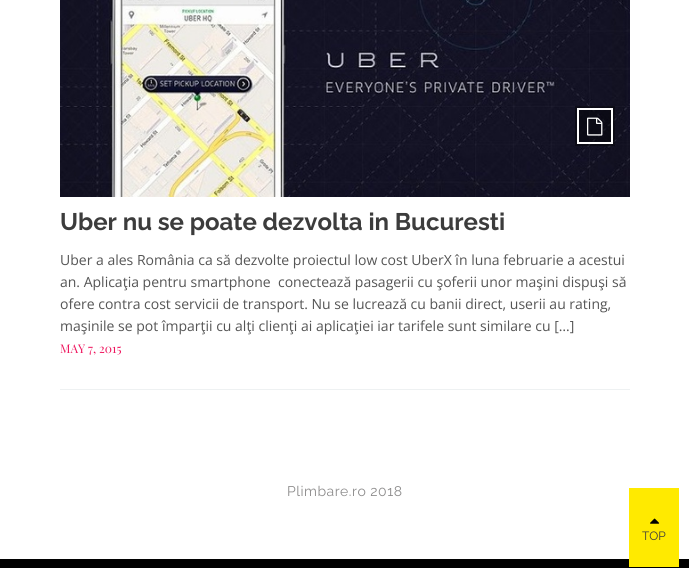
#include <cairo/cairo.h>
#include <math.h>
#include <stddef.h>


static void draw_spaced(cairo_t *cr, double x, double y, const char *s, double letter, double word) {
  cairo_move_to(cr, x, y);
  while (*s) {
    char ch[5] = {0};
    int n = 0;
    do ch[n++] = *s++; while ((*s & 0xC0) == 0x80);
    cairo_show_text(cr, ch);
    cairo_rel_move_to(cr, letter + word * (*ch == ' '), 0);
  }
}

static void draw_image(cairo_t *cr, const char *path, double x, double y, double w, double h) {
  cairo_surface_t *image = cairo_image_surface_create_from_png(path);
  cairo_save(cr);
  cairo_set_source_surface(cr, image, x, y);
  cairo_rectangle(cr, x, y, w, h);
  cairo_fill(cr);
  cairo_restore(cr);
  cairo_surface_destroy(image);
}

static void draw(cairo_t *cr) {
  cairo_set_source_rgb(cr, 1, 1, 1);
  cairo_paint(cr);
  cairo_set_source_rgb(cr, 238 / 255.0, 241 / 255.0, 242 / 255.0);
  cairo_rectangle(cr, 60, 389, 570, 1);
  cairo_fill(cr);
  draw_image(cr, "images/1.png", 60, 0, 570, 197);
  cairo_set_source_rgba(cr, 0, 0, 0, 0.4);
  cairo_rectangle(cr, 575, 106, 40, 40);
  cairo_fill(cr);
  cairo_rectangle(cr, 578, 109, 34, 34);
  cairo_set_source_rgb(cr, 1, 1, 1);
  cairo_stroke(cr);
  draw_image(cr, "images/2.png", 587, 117, 16, 19);
  cairo_set_source_rgb(cr, 1 / 255.0, 1 / 255.0, 1 / 255.0);
  cairo_rectangle(cr, 0, 559, 689, 9);
  cairo_fill(cr);
  cairo_set_source_rgb(cr, 1, 234 / 255.0, 0);
  cairo_rectangle(cr, 629, 488, 50, 79);
  cairo_fill(cr);
  draw_image(cr, "images/3.png", 650, 518, 10, 6);
  cairo_select_font_face(cr, "Raleway", CAIRO_FONT_SLANT_NORMAL, CAIRO_FONT_WEIGHT_BOLD);
  cairo_set_font_size(cr, 24);
  cairo_set_source_rgb(cr, 60 / 255.0, 60 / 255.0, 60 / 255.0);
  cairo_move_to(cr, 60, 230);
  cairo_show_text(cr, "Uber nu se poate dezvolta in Bucuresti");
  cairo_select_font_face(cr, "Open Sans", CAIRO_FONT_SLANT_NORMAL, CAIRO_FONT_WEIGHT_NORMAL);
  cairo_set_font_size(cr, 14);
  cairo_set_source_rgb(cr, 85 / 255.0, 85 / 255.0, 85 / 255.0);
  cairo_move_to(cr, 60, 265);
  cairo_show_text(cr, "Uber a ales România ca să dezvolte proiectul low cost UberX în luna februarie a acestui");
  cairo_move_to(cr, 60, 287);
  cairo_show_text(cr, "an. Aplicaţia pentru smartphone  conectează pasagerii cu şoferii unor maşini dispuşi să");
  cairo_move_to(cr, 60, 309);
  cairo_show_text(cr, "ofere contra cost servicii de transport. Nu se lucrează cu banii direct, userii au rating,");
  cairo_move_to(cr, 60, 331);
  cairo_show_text(cr, "maşinile se pot împarţii cu alţi clienţi ai aplicaţiei iar tarifele sunt similare cu […]");
  cairo_select_font_face(cr, "Playfair Display", CAIRO_FONT_SLANT_NORMAL, CAIRO_FONT_WEIGHT_NORMAL);
  cairo_set_font_size(cr, 12);
  cairo_set_source_rgb(cr, 238 / 255.0, 19 / 255.0, 92 / 255.0);
  cairo_move_to(cr, 60, 353);
  cairo_show_text(cr, "MAY 7, 2015");
  cairo_select_font_face(cr, "Raleway", CAIRO_FONT_SLANT_NORMAL, CAIRO_FONT_WEIGHT_NORMAL);
  cairo_set_font_size(cr, 14);
  cairo_set_source_rgb(cr, 141 / 255.0, 140 / 255.0, 140 / 255.0);
  draw_spaced(cr, 287, 496, "Plimbare.ro 2018", 0.5, 0);
  cairo_set_font_size(cr, 12);
  cairo_set_source_rgb(cr, 60 / 255.0, 60 / 255.0, 60 / 255.0);
  cairo_move_to(cr, 642, 540);
  cairo_show_text(cr, "TOP");
}

int main(void) {
  cairo_surface_t *surface = cairo_image_surface_create(CAIRO_FORMAT_RGB24, 689, 568);
  cairo_t *cr = cairo_create(surface);
  cairo_font_options_t *options = cairo_font_options_create();
  cairo_font_options_set_hint_metrics(options, CAIRO_HINT_METRICS_OFF);
  cairo_font_options_set_hint_style(options, CAIRO_HINT_STYLE_NONE);
  cairo_set_font_options(cr, options);
  cairo_set_miter_limit(cr, 4);
  draw(cr);
  cairo_surface_write_to_png(surface, "out.png");
  cairo_font_options_destroy(options);
  cairo_destroy(cr);
  cairo_surface_destroy(surface);
  return 0;
}
